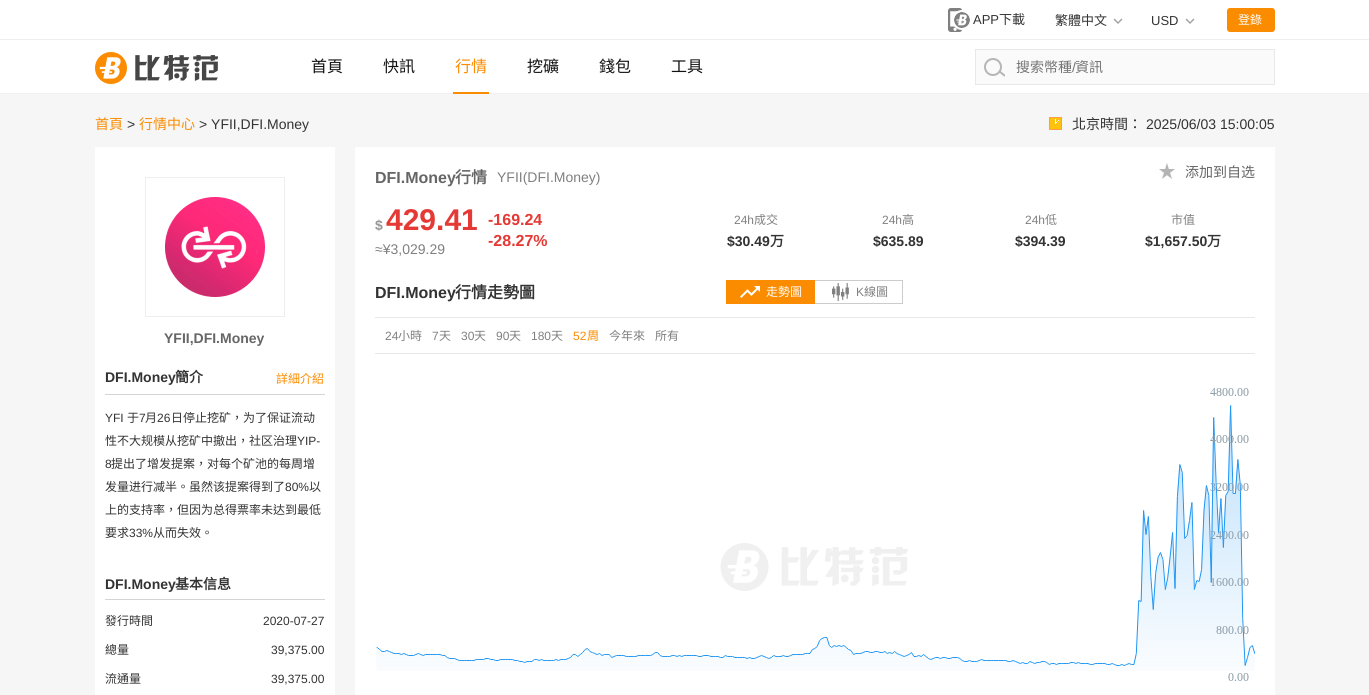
#include <cairo/cairo.h>
#include <math.h>
#include <stddef.h>


static void rounded_rect(cairo_t *cr, double x, double y, double w, double h, double r) {
  cairo_new_sub_path(cr);
  cairo_arc(cr, x + w - r, y + h - r, r, 0, M_PI / 2);
  cairo_arc(cr, x + r, y + h - r, r, M_PI / 2, M_PI);
  cairo_arc(cr, x + r, y + r, r, M_PI, 1.5 * M_PI);
  cairo_arc(cr, x + w - r, y + r, r, 1.5 * M_PI, 2 * M_PI);
  cairo_close_path(cr);
}

static void draw_image(cairo_t *cr, const char *path, double x, double y, double w, double h) {
  cairo_surface_t *image = cairo_image_surface_create_from_png(path);
  cairo_save(cr);
  cairo_set_source_surface(cr, image, x, y);
  cairo_rectangle(cr, x, y, w, h);
  cairo_fill(cr);
  cairo_restore(cr);
  cairo_surface_destroy(image);
}

static void draw(cairo_t *cr) {
  cairo_set_source_rgb(cr, 246 / 255.0, 246 / 255.0, 246 / 255.0);
  cairo_paint(cr);
  cairo_set_source_rgb(cr, 1, 1, 1);
  cairo_rectangle(cr, 0, 0, 1369, 93);
  cairo_fill(cr);
  cairo_set_source_rgb(cr, 240 / 255.0, 240 / 255.0, 240 / 255.0);
  cairo_rectangle(cr, 0, 93, 1369, 1);
  cairo_fill(cr);
  cairo_set_source_rgb(cr, 238 / 255.0, 238 / 255.0, 238 / 255.0);
  cairo_rectangle(cr, 0, 39, 1369, 1);
  cairo_fill(cr);
  draw_image(cr, "images/1.png", 948, 8, 22, 24);
  draw_image(cr, "images/2.png", 1113, 18, 10, 6);
  draw_image(cr, "images/2.png", 1185, 18, 10, 6);
  cairo_set_source_rgb(cr, 251 / 255.0, 140 / 255.0, 0);
  rounded_rect(cr, 1227, 8, 48, 24, 3);
  cairo_fill(cr);
  draw_image(cr, "images/3.png", 95, 52, 123, 32);
  cairo_rectangle(cr, 453, 92, 36, 2);
  cairo_fill(cr);
  cairo_set_source_rgb(cr, 250 / 255.0, 250 / 255.0, 250 / 255.0);
  cairo_rectangle(cr, 975.5, 49.5, 299, 35);
  cairo_fill_preserve(cr);
  cairo_set_source_rgb(cr, 232 / 255.0, 232 / 255.0, 232 / 255.0);
  cairo_set_line_width(cr, 1);
  cairo_stroke(cr);
  cairo_arc(cr, 993, 67, 8, 0, 2 * M_PI);
  cairo_set_source_rgb(cr, 182 / 255.0, 182 / 255.0, 182 / 255.0);
  cairo_set_line_width(cr, 2);
  cairo_stroke(cr);
  cairo_save(cr);
  cairo_rectangle(cr, 984, 58, 21, 19);
  cairo_clip(cr);
  cairo_new_path(cr);
  cairo_move_to(cr, 999.5, 71.5);
  cairo_line_to(cr, 1004.5, 75.5);
  cairo_set_line_cap(cr, CAIRO_LINE_CAP_ROUND);
  cairo_stroke(cr);
  cairo_restore(cr);
  draw_image(cr, "images/4.png", 1049, 117, 13, 13);
  cairo_set_source_rgb(cr, 1, 1, 1);
  cairo_rectangle(cr, 355, 147, 920, 548);
  cairo_fill(cr);
  draw_image(cr, "images/5.png", 1159, 163, 16, 16);
  cairo_rectangle(cr, 814.5, 280.5, 88, 23);
  cairo_set_source_rgb(cr, 204 / 255.0, 204 / 255.0, 204 / 255.0);
  cairo_set_line_width(cr, 1);
  cairo_stroke(cr);
  cairo_set_source_rgb(cr, 251 / 255.0, 140 / 255.0, 0);
  cairo_rectangle(cr, 726, 280, 89, 24);
  cairo_fill(cr);
  draw_image(cr, "images/6.png", 740, 286, 20, 12);
  draw_image(cr, "images/7.png", 832, 283, 17, 18);
  draw_image(cr, "images/8.png", 720, 543, 188, 48);
  cairo_set_source_rgb(cr, 232 / 255.0, 232 / 255.0, 232 / 255.0);
  cairo_rectangle(cr, 375, 317, 880, 1);
  cairo_fill(cr);
  cairo_rectangle(cr, 375, 353, 880, 1);
  cairo_fill(cr);
  draw_image(cr, "images/10.png", 376, 405, 879, 266);
  draw_image(cr, "images/9.png", 1210, 388, 39, 293);
  cairo_set_source_rgb(cr, 1, 1, 1);
  cairo_rectangle(cr, 95, 147, 240, 548);
  cairo_fill(cr);
  cairo_rectangle(cr, 145.5, 177.5, 139, 139);
  cairo_set_source_rgb(cr, 238 / 255.0, 238 / 255.0, 238 / 255.0);
  cairo_stroke(cr);
  draw_image(cr, "images/11.png", 165, 197, 100, 100);
  cairo_set_source_rgb(cr, 212 / 255.0, 212 / 255.0, 212 / 255.0);
  cairo_rectangle(cr, 105, 394, 220, 1);
  cairo_fill(cr);
  cairo_rectangle(cr, 105, 599, 220, 1);
  cairo_fill(cr);
  cairo_select_font_face(cr, "Liberation Sans", CAIRO_FONT_SLANT_NORMAL, CAIRO_FONT_WEIGHT_NORMAL);
  cairo_set_font_size(cr, 13);
  cairo_set_source_rgb(cr, 51 / 255.0, 51 / 255.0, 51 / 255.0);
  cairo_move_to(cr, 973, 24);
  cairo_show_text(cr, "APP");
  cairo_select_font_face(cr, "Noto Sans CJK TC", CAIRO_FONT_SLANT_NORMAL, CAIRO_FONT_WEIGHT_NORMAL);
  cairo_move_to(cr, 999, 24);
  cairo_show_text(cr, "下載");
  cairo_move_to(cr, 1055, 25);
  cairo_show_text(cr, "繁體中文");
  cairo_select_font_face(cr, "Liberation Sans", CAIRO_FONT_SLANT_NORMAL, CAIRO_FONT_WEIGHT_NORMAL);
  cairo_move_to(cr, 1151, 25);
  cairo_show_text(cr, "USD");
  cairo_select_font_face(cr, "Noto Sans CJK TC", CAIRO_FONT_SLANT_NORMAL, CAIRO_FONT_WEIGHT_NORMAL);
  cairo_set_font_size(cr, 12);
  cairo_set_source_rgb(cr, 1, 1, 1);
  cairo_move_to(cr, 1238, 24);
  cairo_show_text(cr, "登錄");
  cairo_set_font_size(cr, 16);
  cairo_set_source_rgb(cr, 18 / 255.0, 18 / 255.0, 18 / 255.0);
  cairo_move_to(cr, 311, 72);
  cairo_show_text(cr, "首頁");
  cairo_move_to(cr, 383, 72);
  cairo_show_text(cr, "快訊");
  cairo_set_source_rgb(cr, 251 / 255.0, 140 / 255.0, 0);
  cairo_move_to(cr, 455, 72);
  cairo_show_text(cr, "行情");
  cairo_set_source_rgb(cr, 18 / 255.0, 18 / 255.0, 18 / 255.0);
  cairo_move_to(cr, 527, 72);
  cairo_show_text(cr, "挖礦");
  cairo_move_to(cr, 599, 72);
  cairo_show_text(cr, "錢包");
  cairo_move_to(cr, 671, 72);
  cairo_show_text(cr, "工具");
  cairo_set_font_size(cr, 14);
  cairo_set_source_rgb(cr, 117 / 255.0, 117 / 255.0, 117 / 255.0);
  cairo_move_to(cr, 1016, 72);
  cairo_show_text(cr, "搜索幣種");
  cairo_select_font_face(cr, "Liberation Sans", CAIRO_FONT_SLANT_NORMAL, CAIRO_FONT_WEIGHT_NORMAL);
  cairo_move_to(cr, 1072, 72);
  cairo_show_text(cr, "/");
  cairo_select_font_face(cr, "Noto Sans CJK TC", CAIRO_FONT_SLANT_NORMAL, CAIRO_FONT_WEIGHT_NORMAL);
  cairo_move_to(cr, 1075, 72);
  cairo_show_text(cr, "資訊");
  cairo_set_source_rgb(cr, 251 / 255.0, 140 / 255.0, 0);
  cairo_move_to(cr, 95, 129);
  cairo_show_text(cr, "首頁");
  cairo_select_font_face(cr, "Liberation Sans", CAIRO_FONT_SLANT_NORMAL, CAIRO_FONT_WEIGHT_NORMAL);
  cairo_set_source_rgb(cr, 51 / 255.0, 51 / 255.0, 51 / 255.0);
  cairo_move_to(cr, 127, 129);
  cairo_show_text(cr, ">");
  cairo_select_font_face(cr, "Noto Sans CJK TC", CAIRO_FONT_SLANT_NORMAL, CAIRO_FONT_WEIGHT_NORMAL);
  cairo_set_source_rgb(cr, 251 / 255.0, 140 / 255.0, 0);
  cairo_move_to(cr, 139, 129);
  cairo_show_text(cr, "行情中心");
  cairo_select_font_face(cr, "Liberation Sans", CAIRO_FONT_SLANT_NORMAL, CAIRO_FONT_WEIGHT_NORMAL);
  cairo_set_source_rgb(cr, 51 / 255.0, 51 / 255.0, 51 / 255.0);
  cairo_move_to(cr, 199, 129);
  cairo_show_text(cr, "> YFII,DFI.Money");
  cairo_select_font_face(cr, "Noto Sans CJK TC", CAIRO_FONT_SLANT_NORMAL, CAIRO_FONT_WEIGHT_NORMAL);
  cairo_move_to(cr, 1072, 129);
  cairo_show_text(cr, "北京時間：");
  cairo_select_font_face(cr, "Liberation Sans", CAIRO_FONT_SLANT_NORMAL, CAIRO_FONT_WEIGHT_NORMAL);
  cairo_move_to(cr, 1146, 129);
  cairo_show_text(cr, "2025/06/03 15:00:05");
  cairo_select_font_face(cr, "Noto Sans CJK TC", CAIRO_FONT_SLANT_NORMAL, CAIRO_FONT_WEIGHT_NORMAL);
  cairo_set_source_rgb(cr, 102 / 255.0, 102 / 255.0, 102 / 255.0);
  cairo_move_to(cr, 1185, 177);
  cairo_show_text(cr, "添加到自选");
  cairo_select_font_face(cr, "Liberation Sans", CAIRO_FONT_SLANT_NORMAL, CAIRO_FONT_WEIGHT_BOLD);
  cairo_set_source_rgb(cr, 150 / 255.0, 150 / 255.0, 150 / 255.0);
  cairo_move_to(cr, 375, 230);
  cairo_show_text(cr, "$");
  cairo_set_font_size(cr, 30);
  cairo_set_source_rgb(cr, 229 / 255.0, 57 / 255.0, 53 / 255.0);
  cairo_move_to(cr, 386, 230);
  cairo_show_text(cr, "429.41");
  cairo_select_font_face(cr, "Liberation Sans", CAIRO_FONT_SLANT_NORMAL, CAIRO_FONT_WEIGHT_NORMAL);
  cairo_set_font_size(cr, 14);
  cairo_set_source_rgb(cr, 128 / 255.0, 128 / 255.0, 128 / 255.0);
  cairo_move_to(cr, 375, 254);
  cairo_show_text(cr, "≈¥3,029.29");
  cairo_select_font_face(cr, "Liberation Sans", CAIRO_FONT_SLANT_NORMAL, CAIRO_FONT_WEIGHT_BOLD);
  cairo_set_font_size(cr, 16);
  cairo_set_source_rgb(cr, 229 / 255.0, 57 / 255.0, 53 / 255.0);
  cairo_move_to(cr, 488, 225);
  cairo_show_text(cr, "-169.24");
  cairo_move_to(cr, 488, 246);
  cairo_show_text(cr, "-28.27%");
  cairo_select_font_face(cr, "Liberation Sans", CAIRO_FONT_SLANT_NORMAL, CAIRO_FONT_WEIGHT_NORMAL);
  cairo_set_font_size(cr, 12);
  cairo_set_source_rgb(cr, 128 / 255.0, 128 / 255.0, 128 / 255.0);
  cairo_move_to(cr, 734, 224);
  cairo_show_text(cr, "24h");
  cairo_select_font_face(cr, "Noto Sans CJK TC", CAIRO_FONT_SLANT_NORMAL, CAIRO_FONT_WEIGHT_NORMAL);
  cairo_move_to(cr, 754, 224);
  cairo_show_text(cr, "成交");
  cairo_select_font_face(cr, "Liberation Sans", CAIRO_FONT_SLANT_NORMAL, CAIRO_FONT_WEIGHT_BOLD);
  cairo_set_font_size(cr, 14);
  cairo_set_source_rgb(cr, 51 / 255.0, 51 / 255.0, 51 / 255.0);
  cairo_move_to(cr, 727, 246);
  cairo_show_text(cr, "$30.49");
  cairo_select_font_face(cr, "Noto Sans CJK TC", CAIRO_FONT_SLANT_NORMAL, CAIRO_FONT_WEIGHT_BOLD);
  cairo_move_to(cr, 770, 246);
  cairo_show_text(cr, "万");
  cairo_select_font_face(cr, "Liberation Sans", CAIRO_FONT_SLANT_NORMAL, CAIRO_FONT_WEIGHT_NORMAL);
  cairo_set_font_size(cr, 12);
  cairo_set_source_rgb(cr, 128 / 255.0, 128 / 255.0, 128 / 255.0);
  cairo_move_to(cr, 882, 224);
  cairo_show_text(cr, "24h");
  cairo_select_font_face(cr, "Noto Sans CJK TC", CAIRO_FONT_SLANT_NORMAL, CAIRO_FONT_WEIGHT_NORMAL);
  cairo_move_to(cr, 902, 224);
  cairo_show_text(cr, "高");
  cairo_select_font_face(cr, "Liberation Sans", CAIRO_FONT_SLANT_NORMAL, CAIRO_FONT_WEIGHT_BOLD);
  cairo_set_font_size(cr, 14);
  cairo_set_source_rgb(cr, 51 / 255.0, 51 / 255.0, 51 / 255.0);
  cairo_move_to(cr, 873, 246);
  cairo_show_text(cr, "$635.89");
  cairo_select_font_face(cr, "Liberation Sans", CAIRO_FONT_SLANT_NORMAL, CAIRO_FONT_WEIGHT_NORMAL);
  cairo_set_font_size(cr, 12);
  cairo_set_source_rgb(cr, 128 / 255.0, 128 / 255.0, 128 / 255.0);
  cairo_move_to(cr, 1025, 224);
  cairo_show_text(cr, "24h");
  cairo_select_font_face(cr, "Noto Sans CJK TC", CAIRO_FONT_SLANT_NORMAL, CAIRO_FONT_WEIGHT_NORMAL);
  cairo_move_to(cr, 1045, 224);
  cairo_show_text(cr, "低");
  cairo_select_font_face(cr, "Liberation Sans", CAIRO_FONT_SLANT_NORMAL, CAIRO_FONT_WEIGHT_BOLD);
  cairo_set_font_size(cr, 14);
  cairo_set_source_rgb(cr, 51 / 255.0, 51 / 255.0, 51 / 255.0);
  cairo_move_to(cr, 1015, 246);
  cairo_show_text(cr, "$394.39");
  cairo_select_font_face(cr, "Noto Sans CJK TC", CAIRO_FONT_SLANT_NORMAL, CAIRO_FONT_WEIGHT_NORMAL);
  cairo_set_font_size(cr, 12);
  cairo_set_source_rgb(cr, 128 / 255.0, 128 / 255.0, 128 / 255.0);
  cairo_move_to(cr, 1171, 224);
  cairo_show_text(cr, "市值");
  cairo_select_font_face(cr, "Liberation Sans", CAIRO_FONT_SLANT_NORMAL, CAIRO_FONT_WEIGHT_BOLD);
  cairo_set_font_size(cr, 14);
  cairo_set_source_rgb(cr, 51 / 255.0, 51 / 255.0, 51 / 255.0);
  cairo_move_to(cr, 1145, 246);
  cairo_show_text(cr, "$1,657.50");
  cairo_select_font_face(cr, "Noto Sans CJK TC", CAIRO_FONT_SLANT_NORMAL, CAIRO_FONT_WEIGHT_BOLD);
  cairo_move_to(cr, 1207, 246);
  cairo_show_text(cr, "万");
  cairo_select_font_face(cr, "Liberation Sans", CAIRO_FONT_SLANT_NORMAL, CAIRO_FONT_WEIGHT_BOLD);
  cairo_set_font_size(cr, 16);
  cairo_set_source_rgb(cr, 102 / 255.0, 102 / 255.0, 102 / 255.0);
  cairo_move_to(cr, 375, 183);
  cairo_show_text(cr, "DFI.Money");
  cairo_select_font_face(cr, "Noto Sans CJK TC", CAIRO_FONT_SLANT_NORMAL, CAIRO_FONT_WEIGHT_BOLD);
  cairo_move_to(cr, 455, 183);
  cairo_show_text(cr, "行情");
  cairo_select_font_face(cr, "Liberation Sans", CAIRO_FONT_SLANT_NORMAL, CAIRO_FONT_WEIGHT_NORMAL);
  cairo_set_font_size(cr, 14);
  cairo_set_source_rgb(cr, 128 / 255.0, 128 / 255.0, 128 / 255.0);
  cairo_move_to(cr, 497, 182);
  cairo_show_text(cr, "YFII(DFI.Money)");
  cairo_select_font_face(cr, "Liberation Sans", CAIRO_FONT_SLANT_NORMAL, CAIRO_FONT_WEIGHT_BOLD);
  cairo_set_font_size(cr, 16);
  cairo_set_source_rgb(cr, 51 / 255.0, 51 / 255.0, 51 / 255.0);
  cairo_move_to(cr, 375, 298);
  cairo_show_text(cr, "DFI.Money");
  cairo_select_font_face(cr, "Noto Sans CJK TC", CAIRO_FONT_SLANT_NORMAL, CAIRO_FONT_WEIGHT_BOLD);
  cairo_move_to(cr, 455, 298);
  cairo_show_text(cr, "行情走勢圖");
  cairo_select_font_face(cr, "Noto Sans CJK TC", CAIRO_FONT_SLANT_NORMAL, CAIRO_FONT_WEIGHT_NORMAL);
  cairo_set_font_size(cr, 12);
  cairo_set_source_rgb(cr, 1, 1, 1);
  cairo_move_to(cr, 766, 296);
  cairo_show_text(cr, "走勢圖");
  cairo_select_font_face(cr, "Liberation Sans", CAIRO_FONT_SLANT_NORMAL, CAIRO_FONT_WEIGHT_NORMAL);
  cairo_set_source_rgb(cr, 128 / 255.0, 128 / 255.0, 128 / 255.0);
  cairo_move_to(cr, 856, 296);
  cairo_show_text(cr, "K");
  cairo_select_font_face(cr, "Noto Sans CJK TC", CAIRO_FONT_SLANT_NORMAL, CAIRO_FONT_WEIGHT_NORMAL);
  cairo_move_to(cr, 864, 296);
  cairo_show_text(cr, "線圖");
  cairo_select_font_face(cr, "Liberation Sans", CAIRO_FONT_SLANT_NORMAL, CAIRO_FONT_WEIGHT_NORMAL);
  cairo_move_to(cr, 385, 340);
  cairo_show_text(cr, "24");
  cairo_select_font_face(cr, "Noto Sans CJK TC", CAIRO_FONT_SLANT_NORMAL, CAIRO_FONT_WEIGHT_NORMAL);
  cairo_move_to(cr, 398, 340);
  cairo_show_text(cr, "小時");
  cairo_select_font_face(cr, "Liberation Sans", CAIRO_FONT_SLANT_NORMAL, CAIRO_FONT_WEIGHT_NORMAL);
  cairo_move_to(cr, 432, 340);
  cairo_show_text(cr, "7");
  cairo_select_font_face(cr, "Noto Sans CJK TC", CAIRO_FONT_SLANT_NORMAL, CAIRO_FONT_WEIGHT_NORMAL);
  cairo_move_to(cr, 439, 340);
  cairo_show_text(cr, "天");
  cairo_select_font_face(cr, "Liberation Sans", CAIRO_FONT_SLANT_NORMAL, CAIRO_FONT_WEIGHT_NORMAL);
  cairo_move_to(cr, 461, 340);
  cairo_show_text(cr, "30");
  cairo_select_font_face(cr, "Noto Sans CJK TC", CAIRO_FONT_SLANT_NORMAL, CAIRO_FONT_WEIGHT_NORMAL);
  cairo_move_to(cr, 474, 340);
  cairo_show_text(cr, "天");
  cairo_select_font_face(cr, "Liberation Sans", CAIRO_FONT_SLANT_NORMAL, CAIRO_FONT_WEIGHT_NORMAL);
  cairo_move_to(cr, 496, 340);
  cairo_show_text(cr, "90");
  cairo_select_font_face(cr, "Noto Sans CJK TC", CAIRO_FONT_SLANT_NORMAL, CAIRO_FONT_WEIGHT_NORMAL);
  cairo_move_to(cr, 509, 340);
  cairo_show_text(cr, "天");
  cairo_select_font_face(cr, "Liberation Sans", CAIRO_FONT_SLANT_NORMAL, CAIRO_FONT_WEIGHT_NORMAL);
  cairo_move_to(cr, 531, 340);
  cairo_show_text(cr, "180");
  cairo_select_font_face(cr, "Noto Sans CJK TC", CAIRO_FONT_SLANT_NORMAL, CAIRO_FONT_WEIGHT_NORMAL);
  cairo_move_to(cr, 551, 340);
  cairo_show_text(cr, "天");
  cairo_select_font_face(cr, "Liberation Sans", CAIRO_FONT_SLANT_NORMAL, CAIRO_FONT_WEIGHT_NORMAL);
  cairo_set_source_rgb(cr, 251 / 255.0, 140 / 255.0, 0);
  cairo_move_to(cr, 573, 340);
  cairo_show_text(cr, "52");
  cairo_select_font_face(cr, "Noto Sans CJK TC", CAIRO_FONT_SLANT_NORMAL, CAIRO_FONT_WEIGHT_NORMAL);
  cairo_move_to(cr, 587, 340);
  cairo_show_text(cr, "周");
  cairo_set_source_rgb(cr, 128 / 255.0, 128 / 255.0, 128 / 255.0);
  cairo_move_to(cr, 609, 340);
  cairo_show_text(cr, "今年來");
  cairo_move_to(cr, 655, 340);
  cairo_show_text(cr, "所有");
  cairo_select_font_face(cr, "Liberation Sans", CAIRO_FONT_SLANT_NORMAL, CAIRO_FONT_WEIGHT_BOLD);
  cairo_set_font_size(cr, 14);
  cairo_set_source_rgb(cr, 102 / 255.0, 102 / 255.0, 102 / 255.0);
  cairo_move_to(cr, 164, 343);
  cairo_show_text(cr, "YFII,DFI.Money");
  cairo_set_source_rgb(cr, 51 / 255.0, 51 / 255.0, 51 / 255.0);
  cairo_move_to(cr, 105, 382);
  cairo_show_text(cr, "DFI.Money");
  cairo_select_font_face(cr, "Noto Sans CJK TC", CAIRO_FONT_SLANT_NORMAL, CAIRO_FONT_WEIGHT_BOLD);
  cairo_move_to(cr, 175, 382);
  cairo_show_text(cr, "簡介");
  cairo_select_font_face(cr, "Noto Sans CJK TC", CAIRO_FONT_SLANT_NORMAL, CAIRO_FONT_WEIGHT_NORMAL);
  cairo_set_font_size(cr, 12);
  cairo_set_source_rgb(cr, 251 / 255.0, 140 / 255.0, 0);
  cairo_move_to(cr, 276, 383);
  cairo_show_text(cr, "詳細介紹");
  cairo_select_font_face(cr, "Liberation Sans", CAIRO_FONT_SLANT_NORMAL, CAIRO_FONT_WEIGHT_NORMAL);
  cairo_set_source_rgb(cr, 51 / 255.0, 51 / 255.0, 51 / 255.0);
  cairo_move_to(cr, 105, 422);
  cairo_show_text(cr, "YFI");
  cairo_select_font_face(cr, "Noto Sans CJK TC", CAIRO_FONT_SLANT_NORMAL, CAIRO_FONT_WEIGHT_NORMAL);
  cairo_move_to(cr, 127, 422);
  cairo_show_text(cr, "于");
  cairo_select_font_face(cr, "Liberation Sans", CAIRO_FONT_SLANT_NORMAL, CAIRO_FONT_WEIGHT_NORMAL);
  cairo_move_to(cr, 139, 422);
  cairo_show_text(cr, "7");
  cairo_select_font_face(cr, "Noto Sans CJK TC", CAIRO_FONT_SLANT_NORMAL, CAIRO_FONT_WEIGHT_NORMAL);
  cairo_move_to(cr, 145, 422);
  cairo_show_text(cr, "月");
  cairo_select_font_face(cr, "Liberation Sans", CAIRO_FONT_SLANT_NORMAL, CAIRO_FONT_WEIGHT_NORMAL);
  cairo_move_to(cr, 157, 422);
  cairo_show_text(cr, "26");
  cairo_select_font_face(cr, "Noto Sans CJK TC", CAIRO_FONT_SLANT_NORMAL, CAIRO_FONT_WEIGHT_NORMAL);
  cairo_move_to(cr, 171, 422);
  cairo_show_text(cr, "日停止挖矿，为了保证流动");
  cairo_move_to(cr, 105, 445);
  cairo_show_text(cr, "性不大规模从挖矿中撤出，社区治理");
  cairo_select_font_face(cr, "Liberation Sans", CAIRO_FONT_SLANT_NORMAL, CAIRO_FONT_WEIGHT_NORMAL);
  cairo_move_to(cr, 297, 445);
  cairo_show_text(cr, "YIP-");
  cairo_move_to(cr, 105, 468);
  cairo_show_text(cr, "8");
  cairo_select_font_face(cr, "Noto Sans CJK TC", CAIRO_FONT_SLANT_NORMAL, CAIRO_FONT_WEIGHT_NORMAL);
  cairo_move_to(cr, 111, 468);
  cairo_show_text(cr, "提出了增发提案，对每个矿池的每周增");
  cairo_move_to(cr, 105, 491);
  cairo_show_text(cr, "发量进行减半。虽然该提案得到了");
  cairo_select_font_face(cr, "Liberation Sans", CAIRO_FONT_SLANT_NORMAL, CAIRO_FONT_WEIGHT_NORMAL);
  cairo_move_to(cr, 285, 491);
  cairo_show_text(cr, "80%");
  cairo_select_font_face(cr, "Noto Sans CJK TC", CAIRO_FONT_SLANT_NORMAL, CAIRO_FONT_WEIGHT_NORMAL);
  cairo_move_to(cr, 309, 491);
  cairo_show_text(cr, "以");
  cairo_move_to(cr, 105, 514);
  cairo_show_text(cr, "上的支持率，但因为总得票率未达到最低");
  cairo_move_to(cr, 105, 537);
  cairo_show_text(cr, "要求");
  cairo_select_font_face(cr, "Liberation Sans", CAIRO_FONT_SLANT_NORMAL, CAIRO_FONT_WEIGHT_NORMAL);
  cairo_move_to(cr, 129, 537);
  cairo_show_text(cr, "33%");
  cairo_select_font_face(cr, "Noto Sans CJK TC", CAIRO_FONT_SLANT_NORMAL, CAIRO_FONT_WEIGHT_NORMAL);
  cairo_move_to(cr, 153, 537);
  cairo_show_text(cr, "从而失效。");
  cairo_select_font_face(cr, "Liberation Sans", CAIRO_FONT_SLANT_NORMAL, CAIRO_FONT_WEIGHT_BOLD);
  cairo_set_font_size(cr, 14);
  cairo_move_to(cr, 105, 589);
  cairo_show_text(cr, "DFI.Money");
  cairo_select_font_face(cr, "Noto Sans CJK TC", CAIRO_FONT_SLANT_NORMAL, CAIRO_FONT_WEIGHT_BOLD);
  cairo_move_to(cr, 175, 589);
  cairo_show_text(cr, "基本信息");
  cairo_select_font_face(cr, "Noto Sans CJK TC", CAIRO_FONT_SLANT_NORMAL, CAIRO_FONT_WEIGHT_NORMAL);
  cairo_set_font_size(cr, 12);
  cairo_move_to(cr, 105, 625);
  cairo_show_text(cr, "發行時間");
  cairo_select_font_face(cr, "Liberation Sans", CAIRO_FONT_SLANT_NORMAL, CAIRO_FONT_WEIGHT_NORMAL);
  cairo_move_to(cr, 263, 625);
  cairo_show_text(cr, "2020-07-27");
  cairo_select_font_face(cr, "Noto Sans CJK TC", CAIRO_FONT_SLANT_NORMAL, CAIRO_FONT_WEIGHT_NORMAL);
  cairo_move_to(cr, 105, 654);
  cairo_show_text(cr, "總量");
  cairo_select_font_face(cr, "Liberation Sans", CAIRO_FONT_SLANT_NORMAL, CAIRO_FONT_WEIGHT_NORMAL);
  cairo_move_to(cr, 271, 654);
  cairo_show_text(cr, "39,375.00");
  cairo_select_font_face(cr, "Noto Sans CJK TC", CAIRO_FONT_SLANT_NORMAL, CAIRO_FONT_WEIGHT_NORMAL);
  cairo_move_to(cr, 105, 683);
  cairo_show_text(cr, "流通量");
  cairo_select_font_face(cr, "Liberation Sans", CAIRO_FONT_SLANT_NORMAL, CAIRO_FONT_WEIGHT_NORMAL);
  cairo_move_to(cr, 271, 683);
  cairo_show_text(cr, "39,375.00");
}

int main(void) {
  cairo_surface_t *surface = cairo_image_surface_create(CAIRO_FORMAT_RGB24, 1369, 695);
  cairo_t *cr = cairo_create(surface);
  cairo_font_options_t *options = cairo_font_options_create();
  cairo_font_options_set_hint_metrics(options, CAIRO_HINT_METRICS_OFF);
  cairo_font_options_set_hint_style(options, CAIRO_HINT_STYLE_NONE);
  cairo_set_font_options(cr, options);
  cairo_set_miter_limit(cr, 4);
  draw(cr);
  cairo_surface_write_to_png(surface, "out.png");
  cairo_font_options_destroy(options);
  cairo_destroy(cr);
  cairo_surface_destroy(surface);
  return 0;
}
